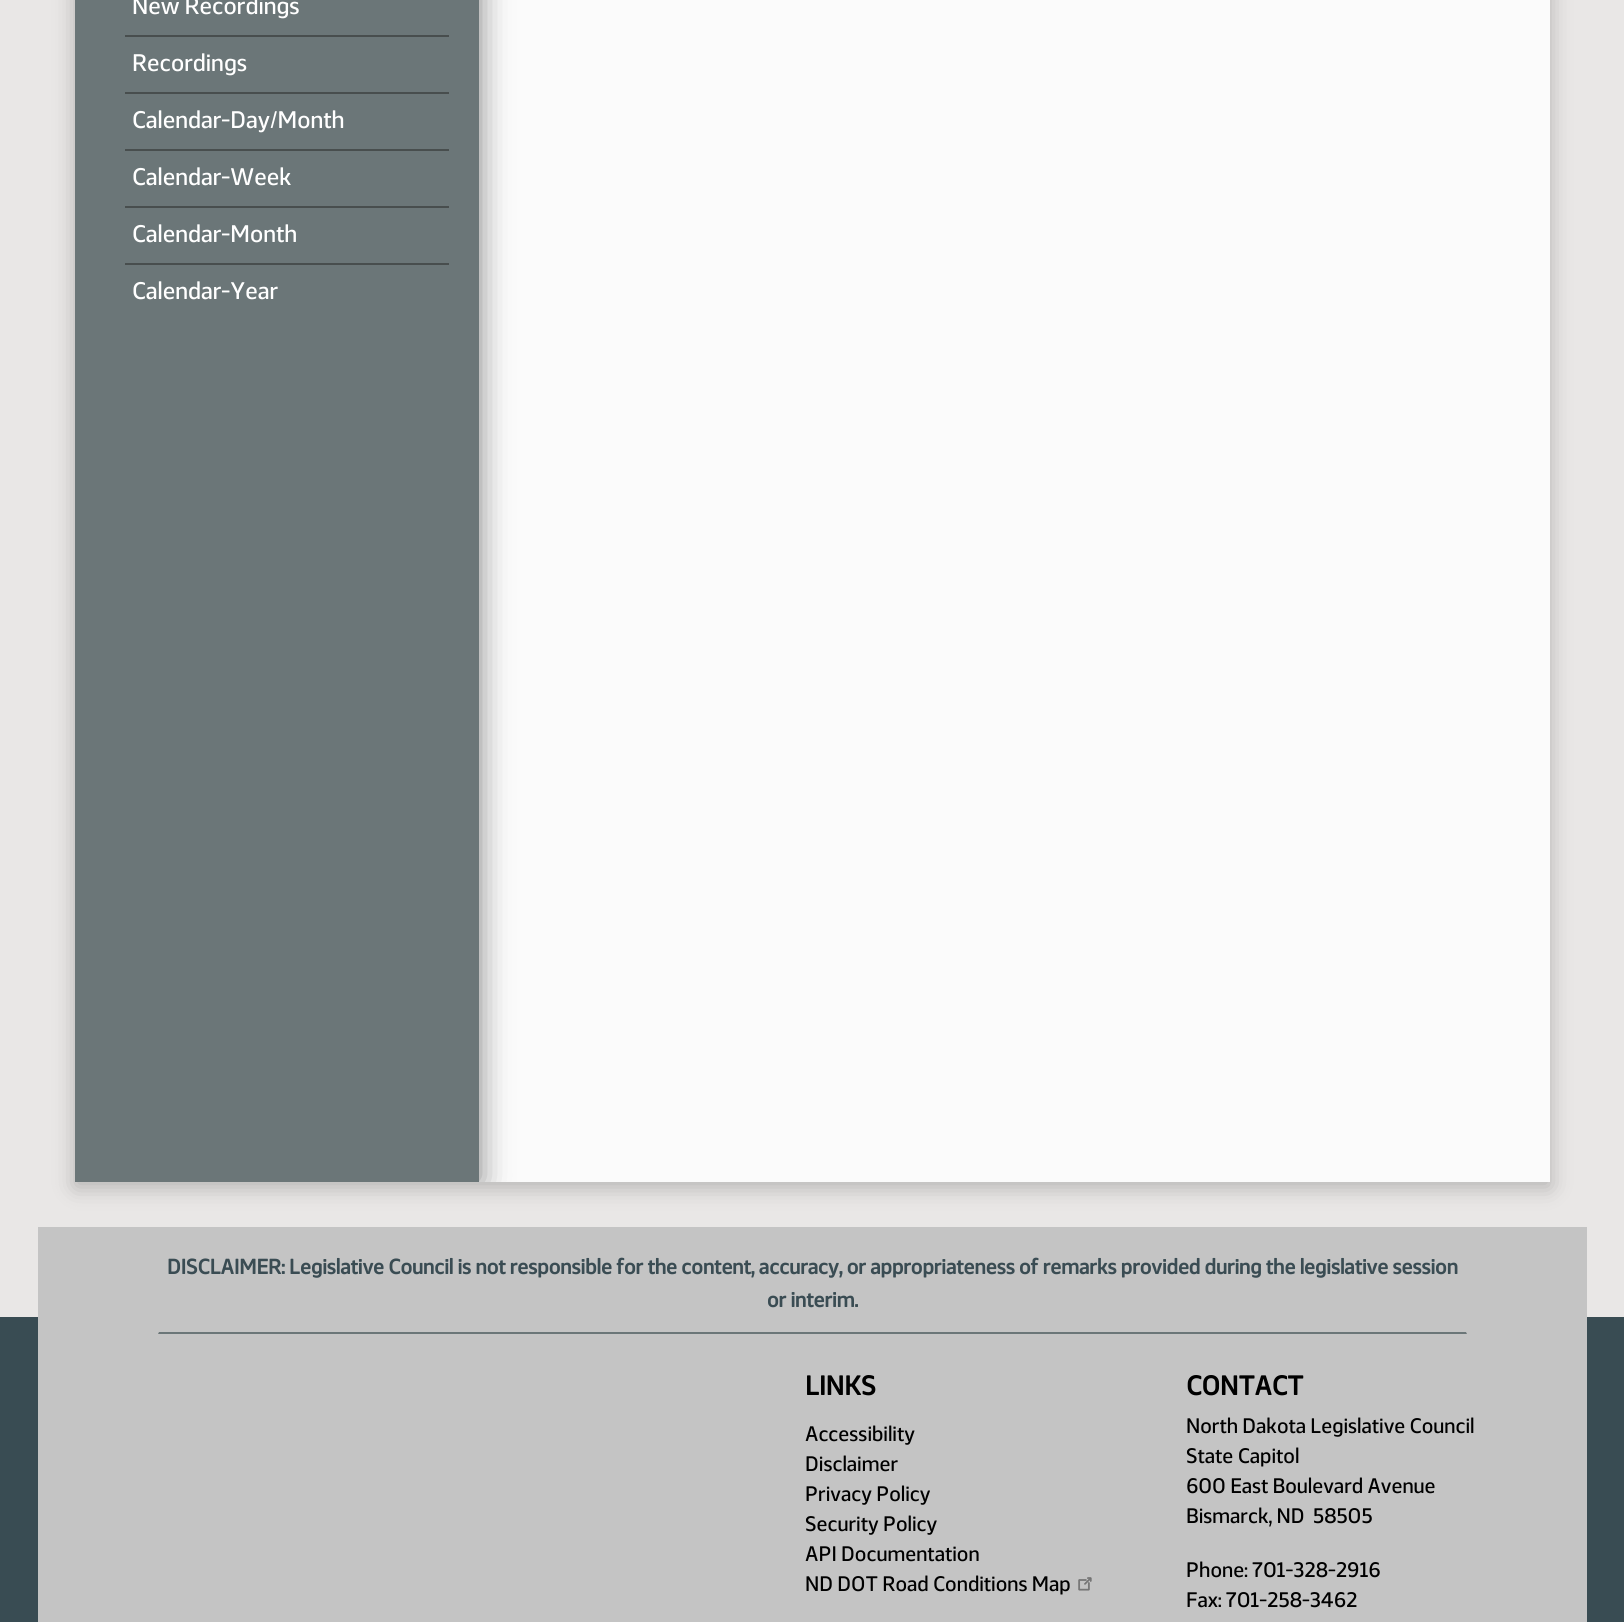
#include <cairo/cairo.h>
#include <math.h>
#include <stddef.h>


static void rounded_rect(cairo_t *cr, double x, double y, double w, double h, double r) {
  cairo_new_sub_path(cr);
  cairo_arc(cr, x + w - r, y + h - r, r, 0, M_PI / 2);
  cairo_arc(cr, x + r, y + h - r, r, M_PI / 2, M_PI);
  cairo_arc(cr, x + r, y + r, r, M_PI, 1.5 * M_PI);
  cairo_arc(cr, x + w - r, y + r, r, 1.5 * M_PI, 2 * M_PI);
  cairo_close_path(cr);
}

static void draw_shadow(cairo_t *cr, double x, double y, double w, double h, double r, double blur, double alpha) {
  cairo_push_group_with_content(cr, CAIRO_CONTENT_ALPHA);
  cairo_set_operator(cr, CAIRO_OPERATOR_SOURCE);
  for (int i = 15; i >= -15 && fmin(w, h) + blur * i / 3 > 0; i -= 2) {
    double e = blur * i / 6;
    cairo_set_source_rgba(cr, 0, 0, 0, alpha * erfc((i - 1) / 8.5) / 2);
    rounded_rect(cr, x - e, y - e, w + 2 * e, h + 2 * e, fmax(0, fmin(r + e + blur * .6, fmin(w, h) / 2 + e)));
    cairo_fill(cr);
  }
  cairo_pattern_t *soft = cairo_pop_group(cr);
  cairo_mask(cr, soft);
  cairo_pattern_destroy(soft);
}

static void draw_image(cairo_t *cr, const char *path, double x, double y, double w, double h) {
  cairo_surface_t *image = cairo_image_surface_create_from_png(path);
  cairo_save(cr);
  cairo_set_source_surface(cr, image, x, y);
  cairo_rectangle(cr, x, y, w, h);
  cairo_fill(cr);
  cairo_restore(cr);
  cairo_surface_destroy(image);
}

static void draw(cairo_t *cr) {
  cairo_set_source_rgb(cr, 233 / 255.0, 231 / 255.0, 230 / 255.0);
  cairo_paint(cr);
  cairo_set_source_rgb(cr, 0, 0, 0);
  draw_shadow(cr, 75, -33, 1475, 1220, 0, 11, 0.24);
  cairo_set_source_rgb(cr, 251 / 255.0, 251 / 255.0, 251 / 255.0);
  cairo_rectangle(cr, 479, 0, 1071, 1182);
  cairo_fill(cr);
  cairo_set_source_rgb(cr, 57 / 255.0, 76 / 255.0, 83 / 255.0);
  cairo_rectangle(cr, 0, 1317, 1624, 305);
  cairo_fill(cr);
  cairo_set_source_rgb(cr, 196 / 255.0, 196 / 255.0, 196 / 255.0);
  cairo_rectangle(cr, 38, 1227, 1549, 395);
  cairo_fill(cr);
  cairo_save(cr);
  cairo_rectangle(cr, 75, 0, 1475, 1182);
  cairo_clip(cr);
  cairo_set_source_rgb(cr, 6 / 255.0, 6 / 255.0, 6 / 255.0);
  draw_shadow(cr, 77, -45, 403, 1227, 0, 15, 0.48);
  cairo_restore(cr);
  cairo_set_source_rgb(cr, 107 / 255.0, 118 / 255.0, 120 / 255.0);
  cairo_rectangle(cr, 75, 0, 404, 1182);
  cairo_fill(cr);
  cairo_set_source_rgb(cr, 72 / 255.0, 78 / 255.0, 78 / 255.0);
  cairo_rectangle(cr, 125, 35, 324, 2);
  cairo_fill(cr);
  cairo_rectangle(cr, 125, 92, 324, 2);
  cairo_fill(cr);
  cairo_rectangle(cr, 125, 149, 324, 2);
  cairo_fill(cr);
  cairo_rectangle(cr, 125, 206, 324, 2);
  cairo_fill(cr);
  cairo_rectangle(cr, 125, 263, 324, 2);
  cairo_fill(cr);
  cairo_set_source_rgb(cr, 107 / 255.0, 118 / 255.0, 120 / 255.0);
  cairo_new_path(cr);
  cairo_move_to(cr, 1467, 1334);
  cairo_line_to(cr, 158, 1334);
  cairo_line_to(cr, 159, 1332);
  cairo_line_to(cr, 1466, 1332);
  cairo_close_path(cr);
  cairo_fill(cr);
  draw_image(cr, "images/1.png", 1078, 1577, 14, 14);
  cairo_select_font_face(cr, "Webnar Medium", CAIRO_FONT_SLANT_NORMAL, CAIRO_FONT_WEIGHT_NORMAL);
  cairo_set_font_size(cr, 24);
  cairo_set_source_rgb(cr, 1, 1, 1);
  cairo_move_to(cr, 132, 14);
  cairo_show_text(cr, "New Recordings");
  cairo_move_to(cr, 132, 71);
  cairo_show_text(cr, "Recordings");
  cairo_move_to(cr, 132, 128);
  cairo_show_text(cr, "Calendar-Day/Month");
  cairo_move_to(cr, 132, 185);
  cairo_show_text(cr, "Calendar-Week");
  cairo_move_to(cr, 132, 242);
  cairo_show_text(cr, "Calendar-Month");
  cairo_move_to(cr, 132, 299);
  cairo_show_text(cr, "Calendar-Year");
  cairo_select_font_face(cr, "Webnar", CAIRO_FONT_SLANT_NORMAL, CAIRO_FONT_WEIGHT_BOLD);
  cairo_set_font_size(cr, 21);
  cairo_set_source_rgb(cr, 58 / 255.0, 76 / 255.0, 83 / 255.0);
  cairo_move_to(cr, 167, 1274);
  cairo_show_text(cr, "DISCLAIMER: Legislative Council is not responsible for the content, accuracy, or appropriateness of remarks provided during the legislative session");
  cairo_move_to(cr, 767, 1307);
  cairo_show_text(cr, "or interim.");
  cairo_set_font_size(cr, 27);
  cairo_set_source_rgb(cr, 0, 0, 0);
  cairo_move_to(cr, 805, 1395);
  cairo_show_text(cr, "LINKS");
  cairo_select_font_face(cr, "Webnar Medium", CAIRO_FONT_SLANT_NORMAL, CAIRO_FONT_WEIGHT_NORMAL);
  cairo_set_font_size(cr, 21);
  cairo_move_to(cr, 805, 1441);
  cairo_show_text(cr, "Accessibility");
  cairo_move_to(cr, 805, 1471);
  cairo_show_text(cr, "Disclaimer");
  cairo_move_to(cr, 805, 1501);
  cairo_show_text(cr, "Privacy Policy");
  cairo_move_to(cr, 805, 1531);
  cairo_show_text(cr, "Security Policy");
  cairo_move_to(cr, 805, 1561);
  cairo_show_text(cr, "API Documentation");
  cairo_move_to(cr, 805, 1591);
  cairo_show_text(cr, "ND DOT Road Conditions Map");
  cairo_select_font_face(cr, "Webnar", CAIRO_FONT_SLANT_NORMAL, CAIRO_FONT_WEIGHT_BOLD);
  cairo_set_font_size(cr, 27);
  cairo_move_to(cr, 1186, 1395);
  cairo_show_text(cr, "CONTACT");
  cairo_select_font_face(cr, "Webnar Medium", CAIRO_FONT_SLANT_NORMAL, CAIRO_FONT_WEIGHT_NORMAL);
  cairo_set_font_size(cr, 21);
  cairo_move_to(cr, 1186, 1433);
  cairo_show_text(cr, "North Dakota Legislative Council");
  cairo_move_to(cr, 1186, 1463);
  cairo_show_text(cr, "State Capitol");
  cairo_move_to(cr, 1186, 1493);
  cairo_show_text(cr, "600 East Boulevard Avenue");
  cairo_move_to(cr, 1186, 1523);
  cairo_show_text(cr, "Bismarck, ND  58505");
  cairo_move_to(cr, 1186, 1577);
  cairo_show_text(cr, "Phone: 701-328-2916");
  cairo_move_to(cr, 1186, 1607);
  cairo_show_text(cr, "Fax: 701-258-3462");
}

int main(void) {
  cairo_surface_t *surface = cairo_image_surface_create(CAIRO_FORMAT_RGB24, 1624, 1622);
  cairo_t *cr = cairo_create(surface);
  cairo_font_options_t *options = cairo_font_options_create();
  cairo_font_options_set_hint_metrics(options, CAIRO_HINT_METRICS_OFF);
  cairo_font_options_set_hint_style(options, CAIRO_HINT_STYLE_NONE);
  cairo_set_font_options(cr, options);
  cairo_set_miter_limit(cr, 4);
  draw(cr);
  cairo_surface_write_to_png(surface, "out.png");
  cairo_font_options_destroy(options);
  cairo_destroy(cr);
  cairo_surface_destroy(surface);
  return 0;
}
